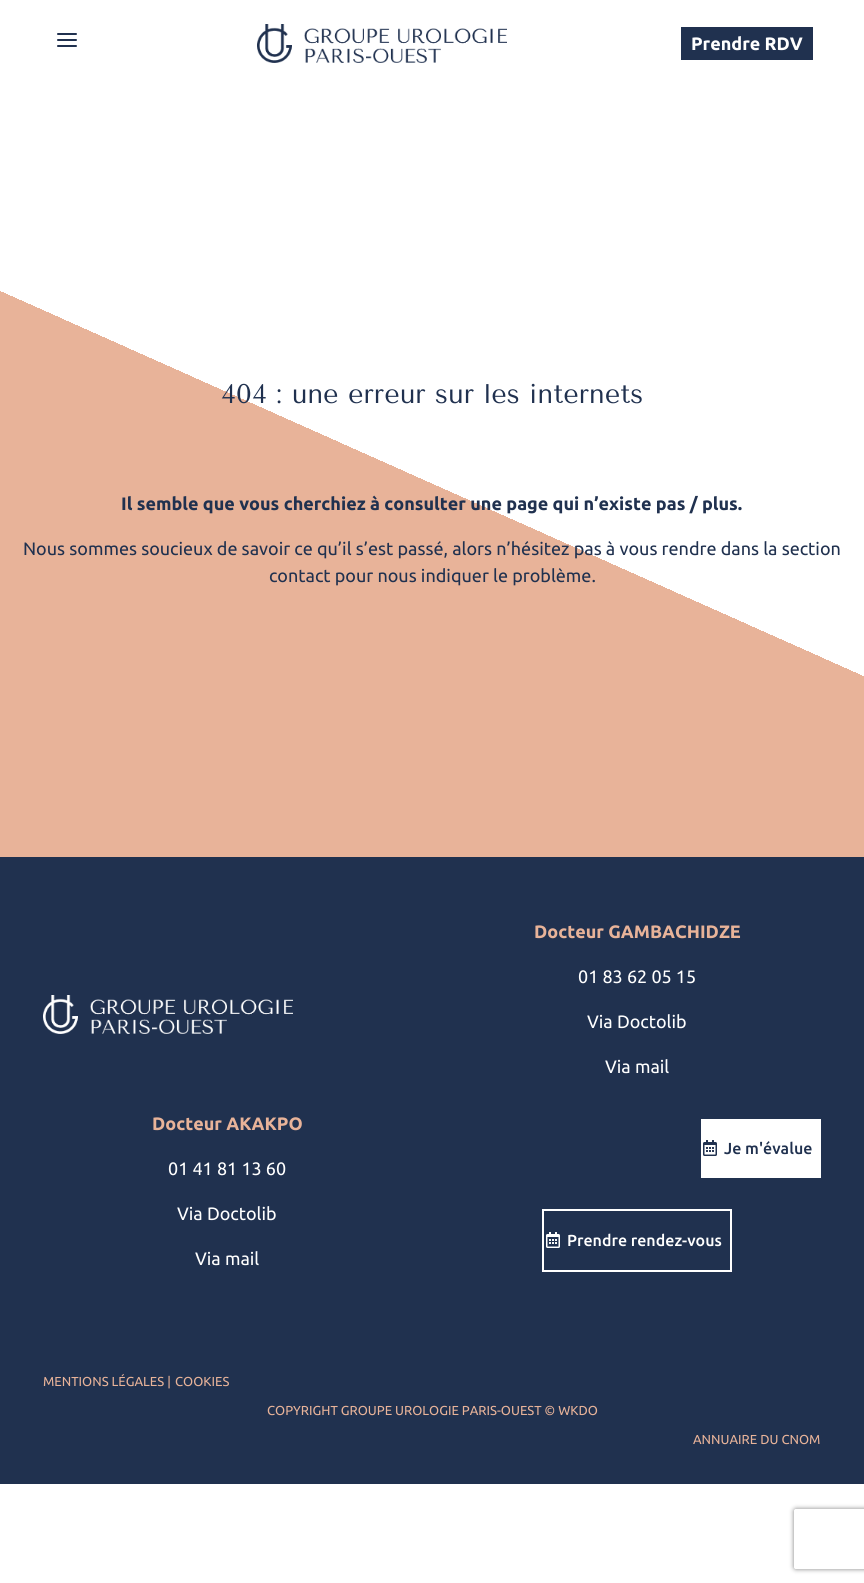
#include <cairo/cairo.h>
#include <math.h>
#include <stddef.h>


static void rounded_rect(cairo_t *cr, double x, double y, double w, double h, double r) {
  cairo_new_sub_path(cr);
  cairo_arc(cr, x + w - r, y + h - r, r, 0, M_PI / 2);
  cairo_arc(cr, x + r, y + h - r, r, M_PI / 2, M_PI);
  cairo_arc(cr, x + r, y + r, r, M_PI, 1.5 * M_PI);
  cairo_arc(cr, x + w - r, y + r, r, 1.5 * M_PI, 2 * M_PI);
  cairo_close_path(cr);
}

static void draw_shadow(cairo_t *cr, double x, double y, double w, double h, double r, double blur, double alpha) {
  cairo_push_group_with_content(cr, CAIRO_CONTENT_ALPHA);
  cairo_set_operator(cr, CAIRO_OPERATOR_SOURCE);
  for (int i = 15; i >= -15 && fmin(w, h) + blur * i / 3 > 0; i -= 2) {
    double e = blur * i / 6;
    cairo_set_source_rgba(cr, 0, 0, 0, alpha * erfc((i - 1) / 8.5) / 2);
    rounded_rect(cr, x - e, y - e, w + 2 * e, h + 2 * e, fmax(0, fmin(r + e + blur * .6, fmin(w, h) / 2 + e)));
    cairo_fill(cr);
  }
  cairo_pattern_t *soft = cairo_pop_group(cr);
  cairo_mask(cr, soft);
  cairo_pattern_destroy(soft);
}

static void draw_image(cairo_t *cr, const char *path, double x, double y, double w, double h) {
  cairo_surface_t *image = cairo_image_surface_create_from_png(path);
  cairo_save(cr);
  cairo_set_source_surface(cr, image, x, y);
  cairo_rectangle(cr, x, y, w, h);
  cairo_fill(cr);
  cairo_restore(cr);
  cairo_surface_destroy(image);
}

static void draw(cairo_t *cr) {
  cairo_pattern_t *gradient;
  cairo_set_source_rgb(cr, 1, 1, 1);
  cairo_paint(cr);
  draw_image(cr, "images/1.png", 57, 33, 20, 14);
  draw_image(cr, "images/2.png", 257, 24, 250, 39);
  cairo_set_source_rgb(cr, 32 / 255.0, 49 / 255.0, 79 / 255.0);
  cairo_rectangle(cr, 681, 27, 132, 33);
  cairo_fill(cr);
  gradient = cairo_pattern_create_linear(647, -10, 217, 954);
  cairo_pattern_add_color_stop_rgba(gradient, 0.51, 1, 1, 1, 1);
  cairo_pattern_add_color_stop_rgba(gradient, 0.51, 232 / 255.0, 179 / 255.0, 153 / 255.0, 1);
  cairo_set_source(cr, gradient);
  cairo_pattern_destroy(gradient);
  cairo_rectangle(cr, 0, 291, 864, 566);
  cairo_fill(cr);
  cairo_set_source_rgb(cr, 32 / 255.0, 49 / 255.0, 79 / 255.0);
  cairo_rectangle(cr, 0, 857, 864, 627);
  cairo_fill(cr);
  draw_image(cr, "images/3.png", 43, 995, 250, 39);
  cairo_set_source_rgb(cr, 1, 1, 1);
  cairo_rectangle(cr, 701, 1119, 120, 59);
  cairo_fill(cr);
  draw_image(cr, "images/4.png", 703, 1140, 14, 16);
  cairo_rectangle(cr, 543, 1210, 188, 61);
  cairo_stroke(cr);
  draw_image(cr, "images/5.png", 546, 1232, 14, 16);
  cairo_save(cr);
  cairo_set_fill_rule(cr, CAIRO_FILL_RULE_EVEN_ODD);
  cairo_new_path(cr);
  cairo_move_to(cr, 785, 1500);
  cairo_line_to(cr, 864, 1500);
  cairo_line_to(cr, 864, 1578);
  cairo_line_to(cr, 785, 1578);
  cairo_close_path(cr);
  cairo_move_to(cr, 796, 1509);
  cairo_line_to(cr, 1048, 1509);
  cairo_curve_to(cr, 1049, 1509, 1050, 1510, 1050, 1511);
  cairo_line_to(cr, 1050, 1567);
  cairo_curve_to(cr, 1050, 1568, 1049, 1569, 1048, 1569);
  cairo_line_to(cr, 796, 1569);
  cairo_curve_to(cr, 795, 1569, 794, 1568, 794, 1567);
  cairo_line_to(cr, 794, 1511);
  cairo_curve_to(cr, 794, 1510, 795, 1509, 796, 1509);
  cairo_close_path(cr);
  cairo_clip(cr);
  cairo_set_source_rgb(cr, 128 / 255.0, 128 / 255.0, 128 / 255.0);
  draw_shadow(cr, 794, 1509, 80, 60, 2, 2.5, 1);
  cairo_restore(cr);
  cairo_select_font_face(cr, "Ubuntu", CAIRO_FONT_SLANT_NORMAL, CAIRO_FONT_WEIGHT_BOLD);
  cairo_set_font_size(cr, 18);
  cairo_move_to(cr, 691, 50);
  cairo_show_text(cr, "Prendre RDV");
  cairo_select_font_face(cr, "Tenor Sans", CAIRO_FONT_SLANT_NORMAL, CAIRO_FONT_WEIGHT_NORMAL);
  cairo_set_font_size(cr, 27);
  cairo_set_source_rgb(cr, 32 / 255.0, 49 / 255.0, 79 / 255.0);
  cairo_move_to(cr, 221, 403);
  cairo_show_text(cr, "404 : une erreur sur les internets");
  cairo_select_font_face(cr, "Ubuntu", CAIRO_FONT_SLANT_NORMAL, CAIRO_FONT_WEIGHT_BOLD);
  cairo_set_font_size(cr, 18);
  cairo_move_to(cr, 121, 510);
  cairo_show_text(cr, "Il semble que vous cherchiez à consulter une page qui n’existe pas / plus.");
  cairo_select_font_face(cr, "Ubuntu", CAIRO_FONT_SLANT_NORMAL, CAIRO_FONT_WEIGHT_NORMAL);
  cairo_move_to(cr, 23, 555);
  cairo_show_text(cr, "Nous sommes soucieux de savoir ce qu’il s’est passé, alors n’hésitez pas à vous rendre dans la section");
  cairo_move_to(cr, 269, 582);
  cairo_show_text(cr, "contact pour nous indiquer le problème.");
  cairo_select_font_face(cr, "Ubuntu", CAIRO_FONT_SLANT_NORMAL, CAIRO_FONT_WEIGHT_BOLD);
  cairo_set_source_rgb(cr, 232 / 255.0, 179 / 255.0, 153 / 255.0);
  cairo_move_to(cr, 534, 938);
  cairo_show_text(cr, "Docteur GAMBACHIDZE");
  cairo_select_font_face(cr, "Ubuntu", CAIRO_FONT_SLANT_NORMAL, CAIRO_FONT_WEIGHT_NORMAL);
  cairo_set_source_rgb(cr, 1, 1, 1);
  cairo_move_to(cr, 578, 983);
  cairo_show_text(cr, "01 83 62 05 15");
  cairo_move_to(cr, 587, 1028);
  cairo_show_text(cr, "Via Doctolib");
  cairo_move_to(cr, 605, 1073);
  cairo_show_text(cr, "Via mail");
  cairo_select_font_face(cr, "Ubuntu", CAIRO_FONT_SLANT_NORMAL, CAIRO_FONT_WEIGHT_BOLD);
  cairo_set_source_rgb(cr, 232 / 255.0, 179 / 255.0, 153 / 255.0);
  cairo_move_to(cr, 152, 1130);
  cairo_show_text(cr, "Docteur AKAKPO");
  cairo_select_font_face(cr, "Ubuntu", CAIRO_FONT_SLANT_NORMAL, CAIRO_FONT_WEIGHT_NORMAL);
  cairo_set_source_rgb(cr, 1, 1, 1);
  cairo_move_to(cr, 168, 1175);
  cairo_show_text(cr, "01 41 81 13 60");
  cairo_move_to(cr, 177, 1220);
  cairo_show_text(cr, "Via Doctolib");
  cairo_move_to(cr, 195, 1265);
  cairo_show_text(cr, "Via mail");
  cairo_select_font_face(cr, "Ubuntu Medium", CAIRO_FONT_SLANT_NORMAL, CAIRO_FONT_WEIGHT_NORMAL);
  cairo_set_font_size(cr, 16);
  cairo_set_source_rgb(cr, 32 / 255.0, 49 / 255.0, 79 / 255.0);
  cairo_move_to(cr, 724, 1154);
  cairo_show_text(cr, "Je m'évalue");
  cairo_set_source_rgb(cr, 1, 1, 1);
  cairo_move_to(cr, 567, 1246);
  cairo_show_text(cr, "Prendre rendez-vous");
  cairo_select_font_face(cr, "Ubuntu", CAIRO_FONT_SLANT_NORMAL, CAIRO_FONT_WEIGHT_NORMAL);
  cairo_set_font_size(cr, 13);
  cairo_set_source_rgb(cr, 232 / 255.0, 179 / 255.0, 153 / 255.0);
  cairo_move_to(cr, 43, 1386);
  cairo_show_text(cr, "MENTIONS LÉGALES |");
  cairo_move_to(cr, 175, 1386);
  cairo_show_text(cr, "COOKIES");
  cairo_move_to(cr, 267, 1415);
  cairo_show_text(cr, "COPYRIGHT GROUPE UROLOGIE PARIS-OUEST © WKDO");
  cairo_move_to(cr, 693, 1444);
  cairo_show_text(cr, "ANNUAIRE DU CNOM");
}

int main(void) {
  cairo_surface_t *surface = cairo_image_surface_create(CAIRO_FORMAT_RGB24, 864, 1583);
  cairo_t *cr = cairo_create(surface);
  cairo_font_options_t *options = cairo_font_options_create();
  cairo_font_options_set_hint_metrics(options, CAIRO_HINT_METRICS_OFF);
  cairo_font_options_set_hint_style(options, CAIRO_HINT_STYLE_NONE);
  cairo_set_font_options(cr, options);
  cairo_set_miter_limit(cr, 4);
  draw(cr);
  cairo_surface_write_to_png(surface, "out.png");
  cairo_font_options_destroy(options);
  cairo_destroy(cr);
  cairo_surface_destroy(surface);
  return 0;
}
